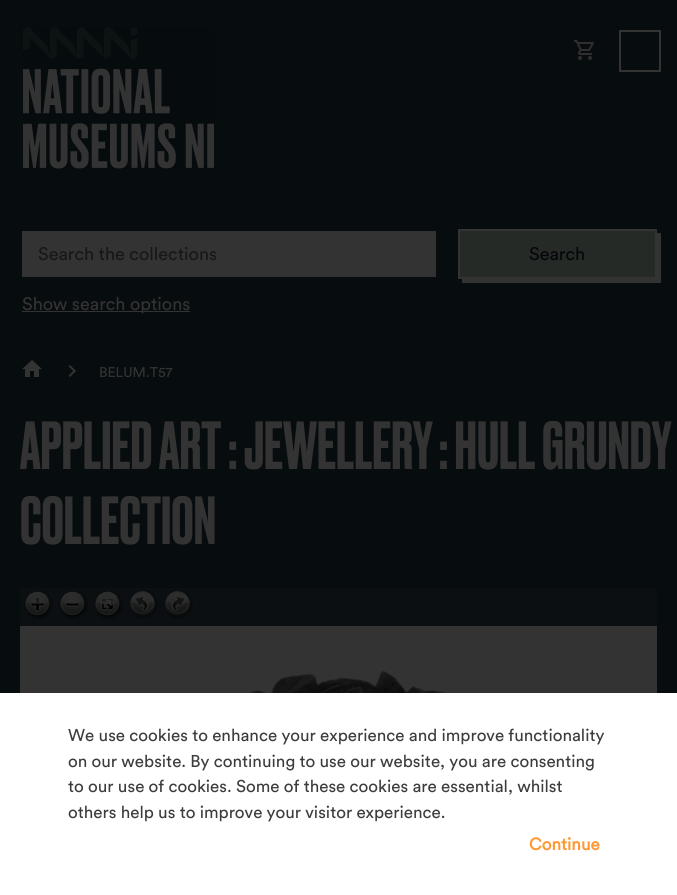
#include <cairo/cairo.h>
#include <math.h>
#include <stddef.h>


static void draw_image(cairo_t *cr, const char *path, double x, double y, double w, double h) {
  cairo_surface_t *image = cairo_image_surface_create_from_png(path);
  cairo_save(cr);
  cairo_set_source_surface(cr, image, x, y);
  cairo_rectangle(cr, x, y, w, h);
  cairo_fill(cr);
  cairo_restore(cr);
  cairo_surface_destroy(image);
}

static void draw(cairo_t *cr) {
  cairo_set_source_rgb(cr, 7 / 255.0, 12 / 255.0, 14 / 255.0);
  cairo_paint(cr);
  draw_image(cr, "images/1.png", 23, 27, 191, 142);
  draw_image(cr, "images/2.png", 574, 40, 20, 20);
  cairo_rectangle(cr, 620, 31, 40, 40);
  cairo_set_source_rgb(cr, 51 / 255.0, 51 / 255.0, 51 / 255.0);
  cairo_stroke(cr);
  cairo_rectangle(cr, 22, 231, 414, 46);
  cairo_fill(cr);
  cairo_new_path(cr);
  cairo_move_to(cr, 462, 279);
  cairo_line_to(cr, 462, 283);
  cairo_line_to(cr, 661, 283);
  cairo_line_to(cr, 661, 233);
  cairo_line_to(cr, 657, 233);
  cairo_line_to(cr, 657, 279);
  cairo_close_path(cr);
  cairo_fill(cr);
  cairo_set_source_rgb(cr, 38 / 255.0, 42 / 255.0, 38 / 255.0);
  cairo_rectangle(cr, 459, 230, 197, 48);
  cairo_fill_preserve(cr);
  cairo_set_source_rgb(cr, 51 / 255.0, 51 / 255.0, 51 / 255.0);
  cairo_stroke(cr);
  cairo_rectangle(cr, 22, 311, 168, 1);
  cairo_fill(cr);
  draw_image(cr, "images/3.png", 22, 360, 20, 17);
  draw_image(cr, "images/4.png", 68, 365, 8, 12);
  cairo_set_source_rgb(cr, 11 / 255.0, 15 / 255.0, 17 / 255.0);
  cairo_rectangle(cr, 20, 588, 637, 38);
  cairo_fill(cr);
  draw_image(cr, "images/5.png", 24, 590, 29, 30);
  draw_image(cr, "images/6.png", 24, 591, 29, 28);
  draw_image(cr, "images/7.png", 59, 590, 29, 30);
  draw_image(cr, "images/8.png", 59, 591, 29, 28);
  draw_image(cr, "images/9.png", 94, 590, 29, 30);
  draw_image(cr, "images/10.png", 94, 591, 29, 28);
  draw_image(cr, "images/11.png", 129, 590, 29, 29);
  draw_image(cr, "images/12.png", 129, 590, 29, 29);
  draw_image(cr, "images/13.png", 164, 590, 29, 29);
  draw_image(cr, "images/14.png", 164, 590, 29, 29);
  draw_image(cr, "images/15.png", 20, 626, 637, 67);
  cairo_set_source_rgb(cr, 1, 1, 1);
  cairo_rectangle(cr, 0, 693, 677, 202);
  cairo_fill(cr);
  cairo_select_font_face(cr, "Circular", CAIRO_FONT_SLANT_NORMAL, CAIRO_FONT_WEIGHT_NORMAL);
  cairo_set_font_size(cr, 18);
  cairo_set_source_rgb(cr, 23 / 255.0, 23 / 255.0, 23 / 255.0);
  cairo_move_to(cr, 38, 260);
  cairo_show_text(cr, "Search the collections");
  cairo_set_source_rgb(cr, 5 / 255.0, 6 / 255.0, 9 / 255.0);
  cairo_move_to(cr, 529, 260);
  cairo_show_text(cr, "Search");
  cairo_set_source_rgb(cr, 51 / 255.0, 51 / 255.0, 51 / 255.0);
  cairo_move_to(cr, 22, 310);
  cairo_show_text(cr, "Show search options");
  cairo_set_font_size(cr, 14);
  cairo_move_to(cr, 99, 377);
  cairo_show_text(cr, "BELUM.T57");
  cairo_select_font_face(cr, "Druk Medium", CAIRO_FONT_SLANT_NORMAL, CAIRO_FONT_WEIGHT_NORMAL);
  cairo_set_font_size(cr, 64);
  cairo_move_to(cr, 20, 469);
  cairo_show_text(cr, "APPLIED ART : JEWELLERY : HULL GRUNDY");
  cairo_move_to(cr, 20, 544);
  cairo_show_text(cr, "COLLECTION");
  cairo_select_font_face(cr, "Circular", CAIRO_FONT_SLANT_NORMAL, CAIRO_FONT_WEIGHT_NORMAL);
  cairo_set_font_size(cr, 17);
  cairo_set_source_rgb(cr, 60 / 255.0, 60 / 255.0, 59 / 255.0);
  cairo_move_to(cr, 68, 741);
  cairo_show_text(cr, "We use cookies to enhance your experience and improve functionality");
  cairo_move_to(cr, 68, 767);
  cairo_show_text(cr, "on our website. By continuing to use our website, you are consenting");
  cairo_move_to(cr, 68, 792);
  cairo_show_text(cr, "to our use of cookies. Some of these cookies are essential, whilst");
  cairo_move_to(cr, 68, 818);
  cairo_show_text(cr, "others help us to improve your visitor experience.");
  cairo_select_font_face(cr, "Circular", CAIRO_FONT_SLANT_NORMAL, CAIRO_FONT_WEIGHT_BOLD);
  cairo_set_source_rgb(cr, 1, 153 / 255.0, 51 / 255.0);
  cairo_move_to(cr, 529, 850);
  cairo_show_text(cr, "Continue");
}

int main(void) {
  cairo_surface_t *surface = cairo_image_surface_create(CAIRO_FORMAT_RGB24, 677, 895);
  cairo_t *cr = cairo_create(surface);
  cairo_font_options_t *options = cairo_font_options_create();
  cairo_font_options_set_hint_metrics(options, CAIRO_HINT_METRICS_OFF);
  cairo_font_options_set_hint_style(options, CAIRO_HINT_STYLE_NONE);
  cairo_set_font_options(cr, options);
  cairo_set_miter_limit(cr, 4);
  draw(cr);
  cairo_surface_write_to_png(surface, "out.png");
  cairo_font_options_destroy(options);
  cairo_destroy(cr);
  cairo_surface_destroy(surface);
  return 0;
}
